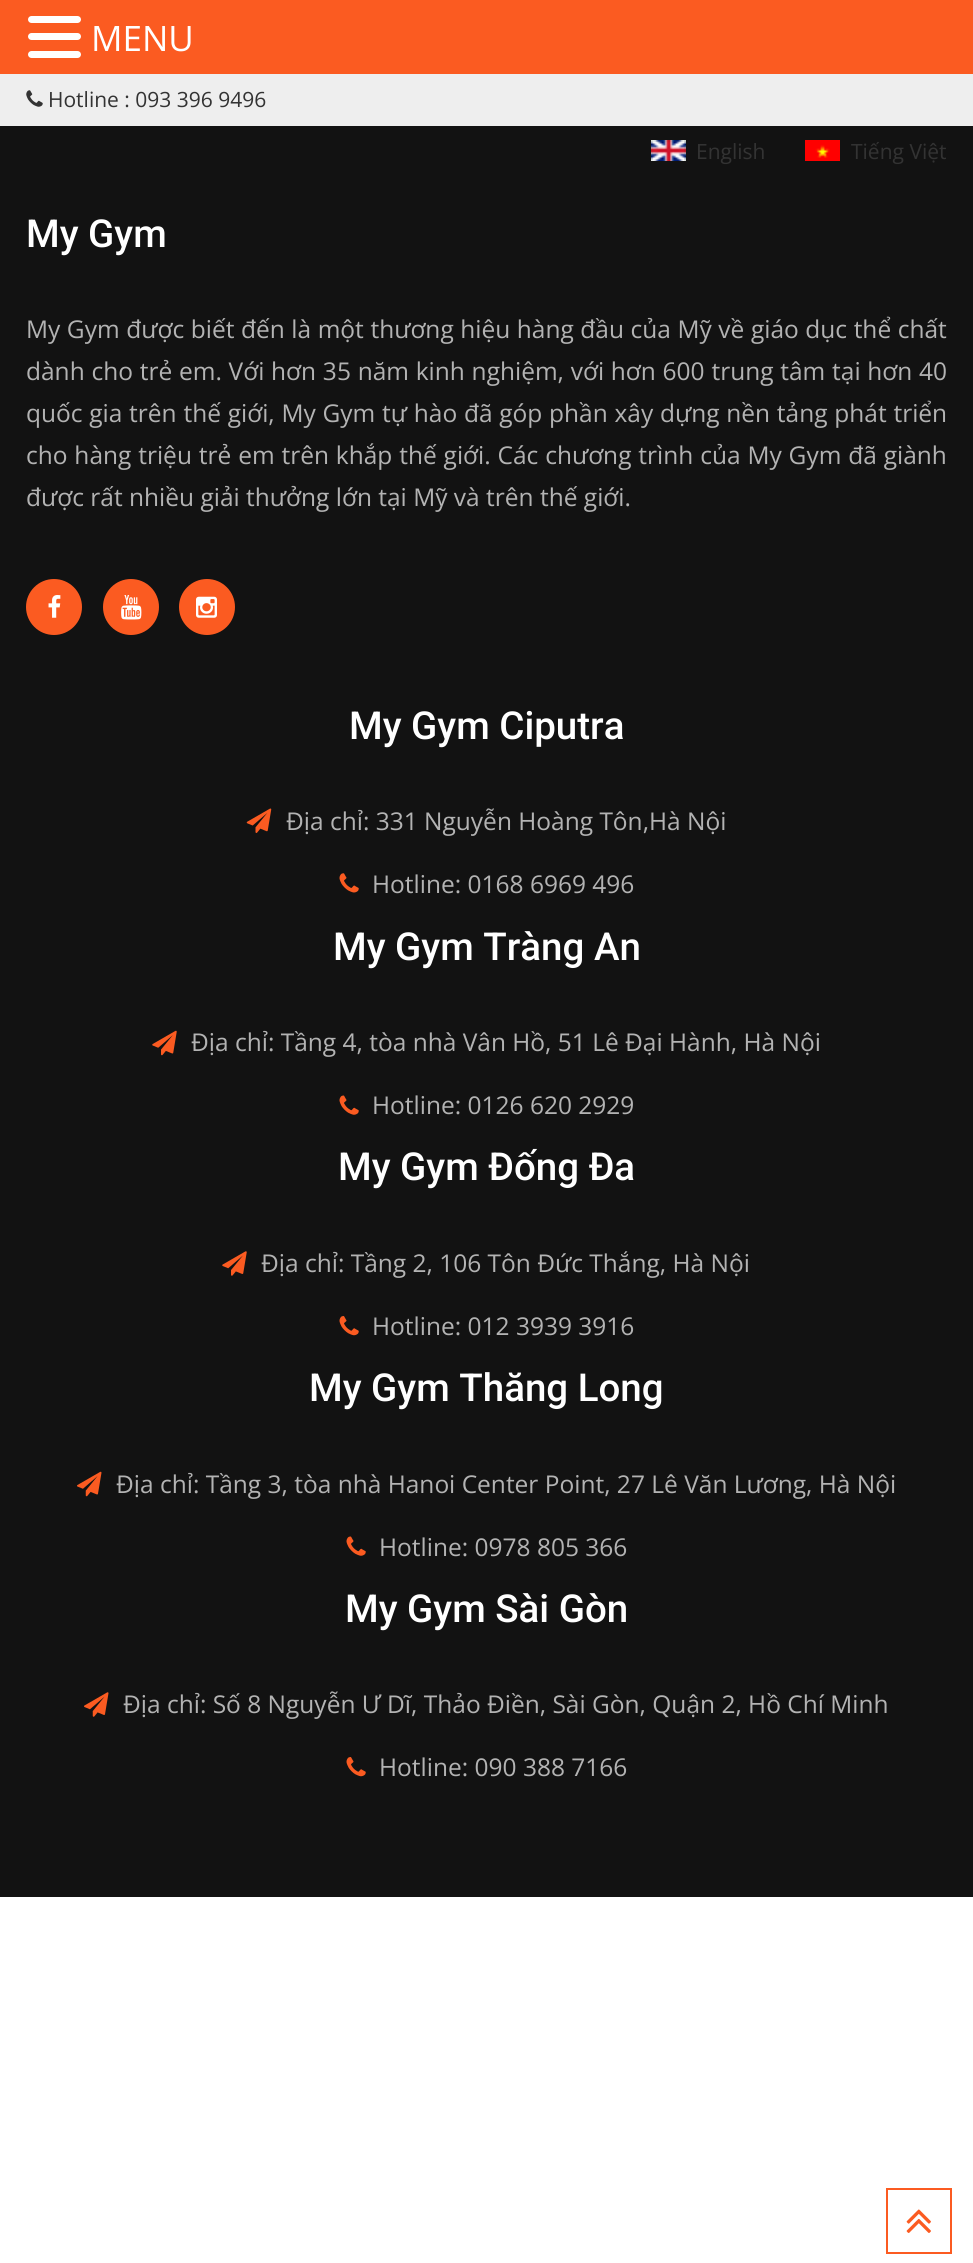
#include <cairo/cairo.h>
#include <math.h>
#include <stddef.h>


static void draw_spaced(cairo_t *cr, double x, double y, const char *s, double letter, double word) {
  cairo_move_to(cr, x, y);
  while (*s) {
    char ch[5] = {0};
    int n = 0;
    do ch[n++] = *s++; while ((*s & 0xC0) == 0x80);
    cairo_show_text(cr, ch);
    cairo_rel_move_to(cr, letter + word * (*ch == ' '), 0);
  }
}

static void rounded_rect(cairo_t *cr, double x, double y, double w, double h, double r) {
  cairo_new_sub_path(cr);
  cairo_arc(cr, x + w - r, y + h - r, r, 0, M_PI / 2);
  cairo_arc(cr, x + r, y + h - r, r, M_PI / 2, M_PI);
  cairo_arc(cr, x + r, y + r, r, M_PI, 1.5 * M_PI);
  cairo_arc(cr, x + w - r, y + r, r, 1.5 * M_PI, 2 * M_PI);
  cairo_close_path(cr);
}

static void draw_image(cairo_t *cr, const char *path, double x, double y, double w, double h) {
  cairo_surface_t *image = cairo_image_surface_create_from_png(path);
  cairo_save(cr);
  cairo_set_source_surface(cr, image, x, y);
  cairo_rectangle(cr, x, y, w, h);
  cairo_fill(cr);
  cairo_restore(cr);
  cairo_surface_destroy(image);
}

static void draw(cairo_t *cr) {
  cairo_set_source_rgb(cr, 1, 1, 1);
  cairo_paint(cr);
  cairo_set_source_rgb(cr, 251 / 255.0, 91 / 255.0, 33 / 255.0);
  cairo_rectangle(cr, 0, 0, 973, 74);
  cairo_fill(cr);
  cairo_set_source_rgb(cr, 1, 1, 1);
  rounded_rect(cr, 28, 16, 53, 7, 3.5);
  cairo_fill(cr);
  rounded_rect(cr, 28, 33, 53, 7, 3.5);
  cairo_fill(cr);
  rounded_rect(cr, 28, 51, 53, 7, 3.5);
  cairo_fill(cr);
  cairo_set_source_rgb(cr, 238 / 255.0, 238 / 255.0, 238 / 255.0);
  cairo_rectangle(cr, 0, 74, 973, 52);
  cairo_fill(cr);
  draw_image(cr, "images/1.png", 26, 90, 17, 17);
  cairo_set_source_rgb(cr, 18 / 255.0, 18 / 255.0, 18 / 255.0);
  cairo_rectangle(cr, 0, 126, 973, 1771);
  cairo_fill(cr);
  draw_image(cr, "images/2.png", 651, 140, 35, 21);
  draw_image(cr, "images/3.png", 805, 140, 35, 21);
  cairo_set_source_rgb(cr, 251 / 255.0, 91 / 255.0, 33 / 255.0);
  cairo_arc(cr, 54, 607, 28, 0, 2 * M_PI);
  cairo_fill(cr);
  draw_image(cr, "images/4.png", 48, 595, 13, 23);
  cairo_arc(cr, 131, 607, 28, 0, 2 * M_PI);
  cairo_fill(cr);
  draw_image(cr, "images/5.png", 121, 595, 21, 25);
  cairo_arc(cr, 207, 607, 28, 0, 2 * M_PI);
  cairo_fill(cr);
  draw_image(cr, "images/6.png", 196, 596, 21, 22);
  draw_image(cr, "images/7.png", 246, 808, 26, 25);
  draw_image(cr, "images/8.png", 339, 873, 20, 20);
  draw_image(cr, "images/9.png", 152, 1030, 25, 26);
  draw_image(cr, "images/10.png", 339, 1095, 20, 20);
  draw_image(cr, "images/11.png", 222, 1251, 25, 25);
  draw_image(cr, "images/12.png", 339, 1316, 20, 20);
  draw_image(cr, "images/13.png", 77, 1471, 25, 26);
  draw_image(cr, "images/10.png", 346, 1536, 20, 20);
  draw_image(cr, "images/14.png", 84, 1692, 25, 25);
  draw_image(cr, "images/12.png", 346, 1757, 20, 20);
  cairo_rectangle(cr, 887, 2189, 64, 64);
  cairo_stroke(cr);
  draw_image(cr, "images/15.png", 906, 2209, 25, 24);
  cairo_select_font_face(cr, "Open Sans", CAIRO_FONT_SLANT_NORMAL, CAIRO_FONT_WEIGHT_NORMAL);
  cairo_set_font_size(cr, 35);
  cairo_set_source_rgb(cr, 1, 1, 1);
  cairo_move_to(cr, 91, 51);
  cairo_show_text(cr, "MENU");
  cairo_set_font_size(cr, 21);
  cairo_set_source_rgb(cr, 51 / 255.0, 51 / 255.0, 51 / 255.0);
  cairo_move_to(cr, 48, 107);
  cairo_show_text(cr, "Hotline : 093 396 9496");
  cairo_move_to(cr, 696, 159);
  cairo_show_text(cr, "English");
  cairo_move_to(cr, 851, 159);
  cairo_show_text(cr, "Tiếng Việt");
  cairo_select_font_face(cr, "Roboto Medium", CAIRO_FONT_SLANT_NORMAL, CAIRO_FONT_WEIGHT_NORMAL);
  cairo_set_font_size(cr, 38.5);
  cairo_set_source_rgb(cr, 1, 1, 1);
  cairo_move_to(cr, 26, 247);
  cairo_show_text(cr, "My Gym");
  cairo_select_font_face(cr, "Open Sans", CAIRO_FONT_SLANT_NORMAL, CAIRO_FONT_WEIGHT_NORMAL);
  cairo_set_font_size(cr, 24.5);
  cairo_set_source_rgb(cr, 179 / 255.0, 179 / 255.0, 179 / 255.0);
  draw_spaced(cr, 26, 338, "My Gym được biết đến là một thương hiệu hàng đầu của Mỹ về giáo dục thể chất", 0, 0.2);
  draw_spaced(cr, 26, 380, "dành cho trẻ em. Với hơn 35 năm kinh nghiệm, với hơn 600 trung tâm tại hơn 40", 0, 0.4);
  draw_spaced(cr, 26, 422, "quốc gia trên thế giới, My Gym tự hào đã góp phần xây dựng nền tảng phát triển", 0, 0.4);
  draw_spaced(cr, 26, 464, "cho hàng triệu trẻ em trên khắp thế giới. Các chương trình của My Gym đã giành", 0, 0.5);
  cairo_move_to(cr, 26, 506);
  cairo_show_text(cr, "được rất nhiều giải thưởng lớn tại Mỹ và trên thế giới.");
  cairo_select_font_face(cr, "Roboto Medium", CAIRO_FONT_SLANT_NORMAL, CAIRO_FONT_WEIGHT_NORMAL);
  cairo_set_font_size(cr, 38.5);
  cairo_set_source_rgb(cr, 1, 1, 1);
  cairo_move_to(cr, 349, 739);
  cairo_show_text(cr, "My Gym Ciputra");
  cairo_select_font_face(cr, "Open Sans", CAIRO_FONT_SLANT_NORMAL, CAIRO_FONT_WEIGHT_NORMAL);
  cairo_set_font_size(cr, 24.5);
  cairo_set_source_rgb(cr, 179 / 255.0, 179 / 255.0, 179 / 255.0);
  cairo_move_to(cr, 286, 830);
  cairo_show_text(cr, "Địa chỉ: 331 Nguyễn Hoàng Tôn,Hà Nội");
  cairo_move_to(cr, 372, 893);
  cairo_show_text(cr, "Hotline: 0168 6969 496");
  cairo_select_font_face(cr, "Roboto Medium", CAIRO_FONT_SLANT_NORMAL, CAIRO_FONT_WEIGHT_NORMAL);
  cairo_set_font_size(cr, 38.5);
  cairo_set_source_rgb(cr, 1, 1, 1);
  cairo_move_to(cr, 333, 960);
  cairo_show_text(cr, "My Gym Tràng An");
  cairo_select_font_face(cr, "Open Sans", CAIRO_FONT_SLANT_NORMAL, CAIRO_FONT_WEIGHT_NORMAL);
  cairo_set_font_size(cr, 24.5);
  cairo_set_source_rgb(cr, 179 / 255.0, 179 / 255.0, 179 / 255.0);
  cairo_move_to(cr, 191, 1051);
  cairo_show_text(cr, "Địa chỉ: Tầng 4, tòa nhà Vân Hồ, 51 Lê Đại Hành, Hà Nội");
  cairo_move_to(cr, 372, 1114);
  cairo_show_text(cr, "Hotline: 0126 620 2929");
  cairo_select_font_face(cr, "Roboto Medium", CAIRO_FONT_SLANT_NORMAL, CAIRO_FONT_WEIGHT_NORMAL);
  cairo_set_font_size(cr, 38.5);
  cairo_set_source_rgb(cr, 1, 1, 1);
  cairo_move_to(cr, 338, 1180);
  cairo_show_text(cr, "My Gym Đống Đa");
  cairo_select_font_face(cr, "Open Sans", CAIRO_FONT_SLANT_NORMAL, CAIRO_FONT_WEIGHT_NORMAL);
  cairo_set_font_size(cr, 24.5);
  cairo_set_source_rgb(cr, 179 / 255.0, 179 / 255.0, 179 / 255.0);
  cairo_move_to(cr, 261, 1272);
  cairo_show_text(cr, "Địa chỉ: Tầng 2, 106 Tôn Đức Thắng, Hà Nội");
  cairo_move_to(cr, 372, 1335);
  cairo_show_text(cr, "Hotline: 012 3939 3916");
  cairo_select_font_face(cr, "Roboto Medium", CAIRO_FONT_SLANT_NORMAL, CAIRO_FONT_WEIGHT_NORMAL);
  cairo_set_font_size(cr, 38.5);
  cairo_set_source_rgb(cr, 1, 1, 1);
  cairo_move_to(cr, 309, 1401);
  cairo_show_text(cr, "My Gym Thăng Long");
  cairo_select_font_face(cr, "Open Sans", CAIRO_FONT_SLANT_NORMAL, CAIRO_FONT_WEIGHT_NORMAL);
  cairo_set_font_size(cr, 24.5);
  cairo_set_source_rgb(cr, 179 / 255.0, 179 / 255.0, 179 / 255.0);
  cairo_move_to(cr, 116, 1493);
  cairo_show_text(cr, "Địa chỉ: Tầng 3, tòa nhà Hanoi Center Point, 27 Lê Văn Lương, Hà Nội");
  cairo_move_to(cr, 379, 1556);
  cairo_show_text(cr, "Hotline: 0978 805 366");
  cairo_select_font_face(cr, "Roboto Medium", CAIRO_FONT_SLANT_NORMAL, CAIRO_FONT_WEIGHT_NORMAL);
  cairo_set_font_size(cr, 38.5);
  cairo_set_source_rgb(cr, 1, 1, 1);
  cairo_move_to(cr, 345, 1622);
  cairo_show_text(cr, "My Gym Sài Gòn");
  cairo_select_font_face(cr, "Open Sans", CAIRO_FONT_SLANT_NORMAL, CAIRO_FONT_WEIGHT_NORMAL);
  cairo_set_font_size(cr, 24.5);
  cairo_set_source_rgb(cr, 179 / 255.0, 179 / 255.0, 179 / 255.0);
  cairo_move_to(cr, 123, 1713);
  cairo_show_text(cr, "Địa chỉ: Số 8 Nguyễn Ư Dĩ, Thảo Điền, Sài Gòn, Quận 2, Hồ Chí Minh");
  cairo_move_to(cr, 379, 1776);
  cairo_show_text(cr, "Hotline: 090 388 7166");
}

int main(void) {
  cairo_surface_t *surface = cairo_image_surface_create(CAIRO_FORMAT_RGB24, 973, 2263);
  cairo_t *cr = cairo_create(surface);
  cairo_font_options_t *options = cairo_font_options_create();
  cairo_font_options_set_hint_metrics(options, CAIRO_HINT_METRICS_OFF);
  cairo_font_options_set_hint_style(options, CAIRO_HINT_STYLE_NONE);
  cairo_set_font_options(cr, options);
  cairo_set_miter_limit(cr, 4);
  draw(cr);
  cairo_surface_write_to_png(surface, "out.png");
  cairo_font_options_destroy(options);
  cairo_destroy(cr);
  cairo_surface_destroy(surface);
  return 0;
}
